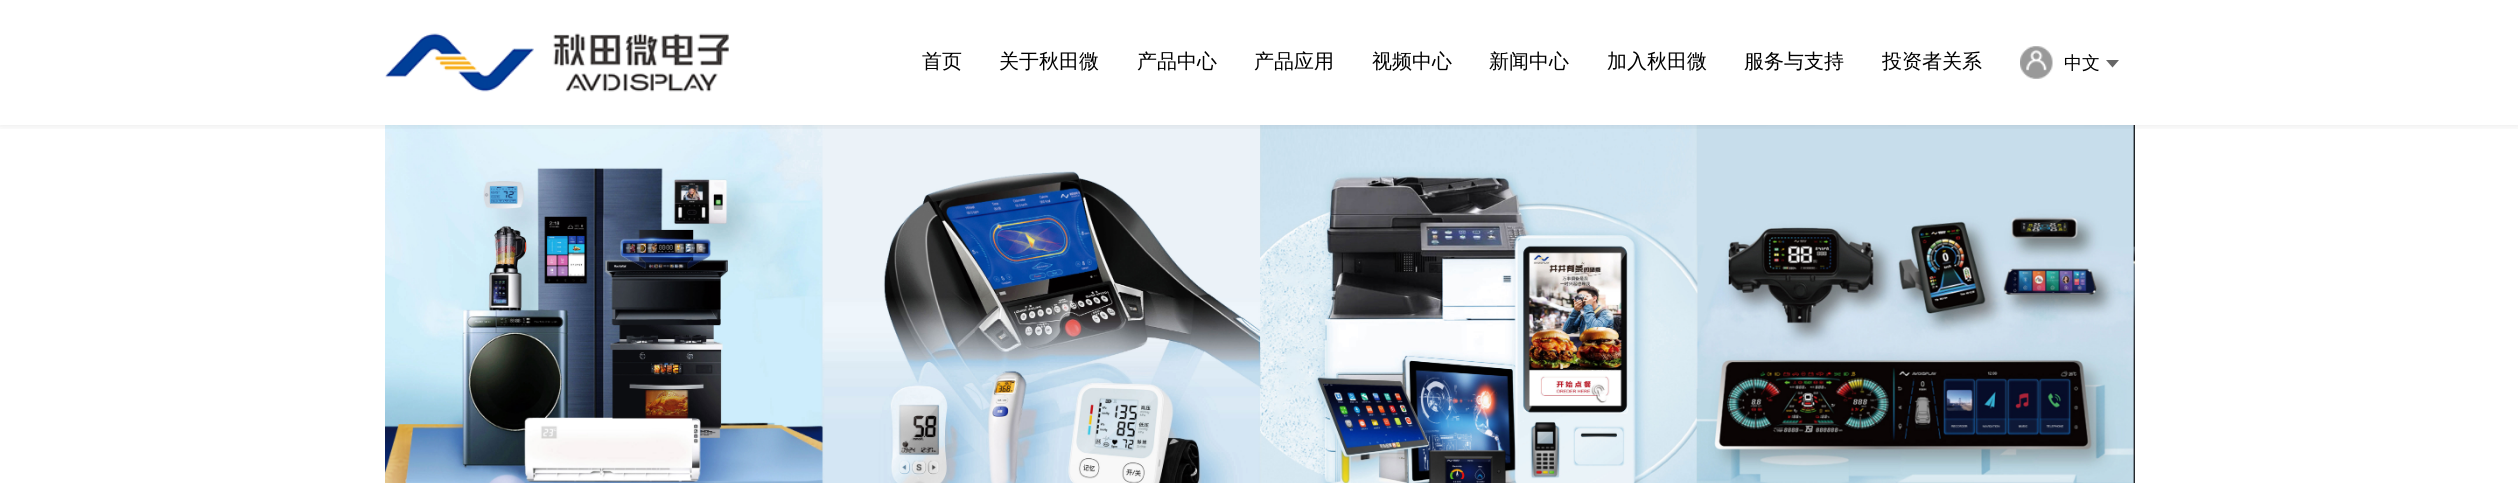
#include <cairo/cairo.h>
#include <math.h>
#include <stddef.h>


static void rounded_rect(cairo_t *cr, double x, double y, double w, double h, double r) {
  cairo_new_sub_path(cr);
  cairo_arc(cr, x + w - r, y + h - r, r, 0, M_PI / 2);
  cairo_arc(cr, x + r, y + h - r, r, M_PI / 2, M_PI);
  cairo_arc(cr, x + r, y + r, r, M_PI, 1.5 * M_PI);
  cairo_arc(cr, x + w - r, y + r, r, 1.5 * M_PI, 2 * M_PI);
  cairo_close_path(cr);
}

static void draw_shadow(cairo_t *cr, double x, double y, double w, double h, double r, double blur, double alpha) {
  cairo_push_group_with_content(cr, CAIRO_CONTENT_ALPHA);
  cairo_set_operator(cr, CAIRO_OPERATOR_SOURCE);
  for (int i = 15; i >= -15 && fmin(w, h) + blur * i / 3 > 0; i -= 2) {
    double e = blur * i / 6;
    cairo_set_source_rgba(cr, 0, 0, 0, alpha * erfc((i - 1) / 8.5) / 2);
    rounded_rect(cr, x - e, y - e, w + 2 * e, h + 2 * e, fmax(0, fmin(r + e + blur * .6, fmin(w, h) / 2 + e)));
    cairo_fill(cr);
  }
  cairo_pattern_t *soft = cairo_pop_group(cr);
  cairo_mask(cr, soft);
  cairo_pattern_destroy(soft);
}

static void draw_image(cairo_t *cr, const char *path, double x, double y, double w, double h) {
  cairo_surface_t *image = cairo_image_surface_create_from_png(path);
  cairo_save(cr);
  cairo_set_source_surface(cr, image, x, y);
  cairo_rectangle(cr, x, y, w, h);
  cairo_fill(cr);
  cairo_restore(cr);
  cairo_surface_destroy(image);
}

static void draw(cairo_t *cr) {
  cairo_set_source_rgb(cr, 1, 1, 1);
  cairo_paint(cr);
  draw_image(cr, "images/3.png", 385, 125, 1750, 358);
  cairo_save(cr);
  cairo_rectangle(cr, 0, 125, 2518, 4);
  cairo_clip(cr);
  cairo_set_source_rgb(cr, 0, 0, 0);
  draw_shadow(cr, 0, 0, 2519, 125, 0, 5, 0.1);
  cairo_restore(cr);
  draw_image(cr, "images/1.png", 385, 33, 344, 59);
  draw_image(cr, "images/2.png", 2020, 46, 33, 33);
  cairo_set_source_rgb(cr, 102 / 255.0, 102 / 255.0, 102 / 255.0);
  cairo_new_path(cr);
  cairo_move_to(cr, 2106, 60);
  cairo_line_to(cr, 2119, 60);
  cairo_line_to(cr, 2112.5, 67.5);
  cairo_close_path(cr);
  cairo_fill(cr);
  cairo_select_font_face(cr, "WenQuanYi Zen Hei Medium", CAIRO_FONT_SLANT_NORMAL, CAIRO_FONT_WEIGHT_NORMAL);
  cairo_set_font_size(cr, 20);
  cairo_set_source_rgb(cr, 0, 0, 0);
  cairo_move_to(cr, 922, 68);
  cairo_show_text(cr, "首页");
  cairo_move_to(cr, 999, 68);
  cairo_show_text(cr, "关于秋田微");
  cairo_move_to(cr, 1137, 68);
  cairo_show_text(cr, "产品中心");
  cairo_move_to(cr, 1254, 68);
  cairo_show_text(cr, "产品应用");
  cairo_move_to(cr, 1372, 68);
  cairo_show_text(cr, "视频中心");
  cairo_move_to(cr, 1489, 68);
  cairo_show_text(cr, "新闻中心");
  cairo_move_to(cr, 1607, 68);
  cairo_show_text(cr, "加入秋田微");
  cairo_move_to(cr, 1744, 68);
  cairo_show_text(cr, "服务与支持");
  cairo_move_to(cr, 1882, 68);
  cairo_show_text(cr, "投资者关系");
  cairo_set_font_size(cr, 18);
  cairo_move_to(cr, 2064, 69);
  cairo_show_text(cr, "中文");
}

int main(void) {
  cairo_surface_t *surface = cairo_image_surface_create(CAIRO_FORMAT_RGB24, 2518, 483);
  cairo_t *cr = cairo_create(surface);
  cairo_font_options_t *options = cairo_font_options_create();
  cairo_font_options_set_hint_metrics(options, CAIRO_HINT_METRICS_OFF);
  cairo_font_options_set_hint_style(options, CAIRO_HINT_STYLE_NONE);
  cairo_set_font_options(cr, options);
  cairo_set_miter_limit(cr, 4);
  draw(cr);
  cairo_surface_write_to_png(surface, "out.png");
  cairo_font_options_destroy(options);
  cairo_destroy(cr);
  cairo_surface_destroy(surface);
  return 0;
}
